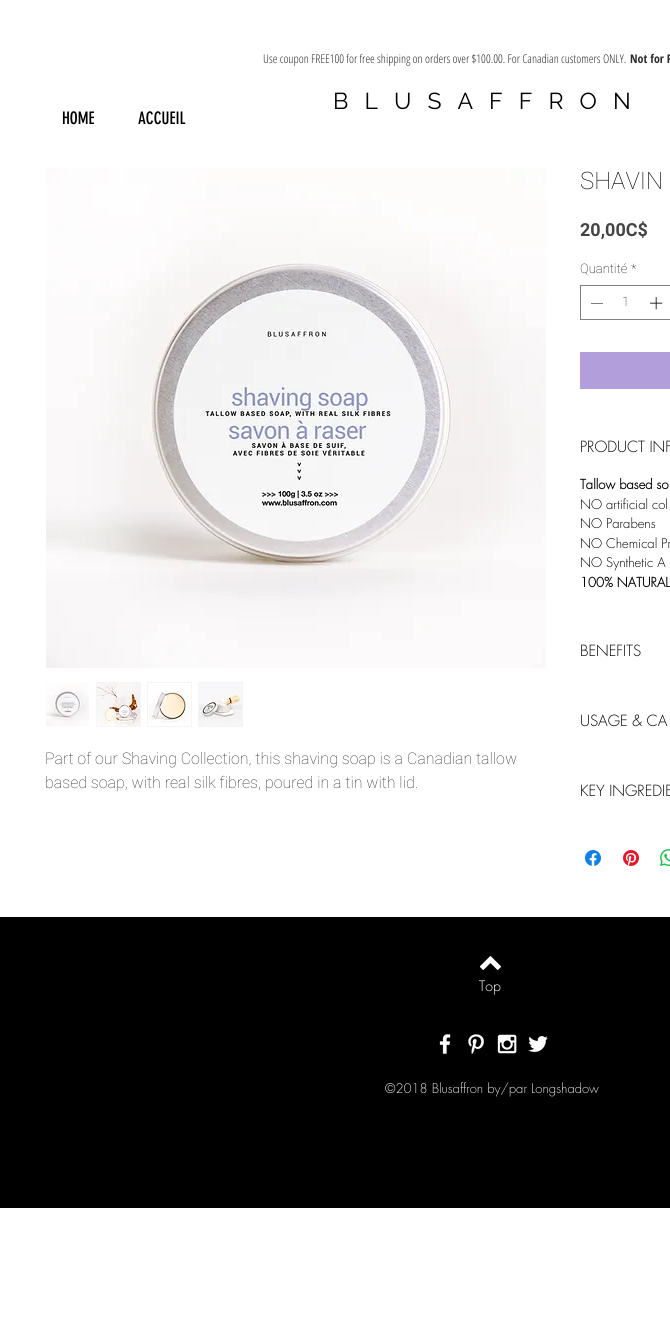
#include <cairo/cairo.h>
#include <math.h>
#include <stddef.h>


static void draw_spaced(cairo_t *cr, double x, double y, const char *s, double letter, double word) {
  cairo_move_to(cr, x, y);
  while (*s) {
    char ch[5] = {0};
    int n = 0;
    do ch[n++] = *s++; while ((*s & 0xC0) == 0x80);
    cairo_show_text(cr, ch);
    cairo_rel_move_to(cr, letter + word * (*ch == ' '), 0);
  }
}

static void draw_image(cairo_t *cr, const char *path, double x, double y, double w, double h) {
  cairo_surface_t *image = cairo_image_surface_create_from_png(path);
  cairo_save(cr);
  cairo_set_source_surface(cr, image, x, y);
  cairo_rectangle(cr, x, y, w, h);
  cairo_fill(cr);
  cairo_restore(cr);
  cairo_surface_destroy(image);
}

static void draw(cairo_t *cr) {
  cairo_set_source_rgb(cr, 1, 1, 1);
  cairo_paint(cr);
  draw_image(cr, "images/1.png", 46, 168, 500, 500);
  draw_image(cr, "images/2.png", 46, 683, 43, 43);
  cairo_rectangle(cr, 96.5, 682.5, 44, 44);
  cairo_set_source_rgb(cr, 246 / 255.0, 245 / 255.0, 245 / 255.0);
  cairo_set_line_width(cr, 1);
  cairo_stroke(cr);
  draw_image(cr, "images/3.png", 97, 683, 43, 43);
  cairo_rectangle(cr, 147.5, 682.5, 44, 44);
  cairo_stroke(cr);
  draw_image(cr, "images/4.png", 149, 691, 41, 32);
  cairo_rectangle(cr, 198.5, 682.5, 44, 44);
  cairo_stroke(cr);
  draw_image(cr, "images/5.png", 199, 683, 43, 43);
  cairo_rectangle(cr, 580.5, 285.5, 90, 34);
  cairo_set_source_rgb(cr, 128 / 255.0, 128 / 255.0, 128 / 255.0);
  cairo_stroke(cr);
  cairo_set_source_rgb(cr, 0, 0, 0);
  cairo_set_fill_rule(cr, CAIRO_FILL_RULE_EVEN_ODD);
  cairo_new_path(cr);
  cairo_move_to(cr, 603, 303);
  cairo_line_to(cr, 603, 303.5);
  cairo_line_to(cr, 591, 303.5);
  cairo_line_to(cr, 591, 303);
  cairo_close_path(cr);
  cairo_fill(cr);
  draw_image(cr, "images/6.png", 650, 297, 13, 13);
  cairo_set_source_rgb(cr, 177 / 255.0, 158 / 255.0, 219 / 255.0);
  cairo_rectangle(cr, 580, 352, 90, 37);
  cairo_fill(cr);
  draw_image(cr, "images/7.png", 585, 850, 16, 16);
  draw_image(cr, "images/8.png", 623, 850, 16, 16);
  draw_image(cr, "images/9.png", 660, 849, 10, 17);
  cairo_set_source_rgb(cr, 0, 0, 0);
  cairo_rectangle(cr, 0, 917, 670, 291);
  cairo_fill(cr);
  draw_image(cr, "images/10.png", 480, 956, 21, 14);
  draw_image(cr, "images/11.png", 439, 1034, 12, 20);
  draw_image(cr, "images/12.png", 468, 1034, 16, 20);
  draw_image(cr, "images/13.png", 497, 1034, 20, 20);
  draw_image(cr, "images/14.png", 528, 1036, 20, 17);
  cairo_select_font_face(cr, "Open Sans Condensed Light", CAIRO_FONT_SLANT_NORMAL, CAIRO_FONT_WEIGHT_NORMAL);
  cairo_set_font_size(cr, 12);
  cairo_set_source_rgb(cr, 45 / 255.0, 45 / 255.0, 45 / 255.0);
  cairo_move_to(cr, 263, 63);
  cairo_show_text(cr, "Use coupon FREE100 for free shipping on orders over $100.00. For Canadian customers ONLY.");
  cairo_select_font_face(cr, "Open Sans Condensed", CAIRO_FONT_SLANT_NORMAL, CAIRO_FONT_WEIGHT_BOLD);
  cairo_move_to(cr, 630, 63);
  cairo_show_text(cr, "Not for R");
  cairo_select_font_face(cr, "Raleway", CAIRO_FONT_SLANT_NORMAL, CAIRO_FONT_WEIGHT_NORMAL);
  cairo_set_font_size(cr, 23);
  cairo_set_source_rgb(cr, 0, 0, 0);
  draw_spaced(cr, 333, 109, "BLUSAFFRON", 16.1, 0);
  cairo_select_font_face(cr, "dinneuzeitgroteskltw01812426", CAIRO_FONT_SLANT_NORMAL, CAIRO_FONT_WEIGHT_NORMAL);
  cairo_set_font_size(cr, 17);
  cairo_move_to(cr, 62, 124);
  cairo_show_text(cr, "HOME");
  cairo_move_to(cr, 138, 124);
  cairo_show_text(cr, "ACCUEIL");
  cairo_select_font_face(cr, "Roboto Thin", CAIRO_FONT_SLANT_NORMAL, CAIRO_FONT_WEIGHT_NORMAL);
  cairo_set_font_size(cr, 16);
  cairo_set_source_rgb(cr, 45 / 255.0, 45 / 255.0, 45 / 255.0);
  cairo_move_to(cr, 45, 764);
  cairo_show_text(cr, "Part of our Shaving Collection, this shaving soap is a Canadian tallow");
  cairo_move_to(cr, 45, 788);
  cairo_show_text(cr, "based soap, with real silk fibres, poured in a tin with lid.");
  cairo_set_font_size(cr, 24);
  cairo_set_source_rgb(cr, 0, 0, 0);
  cairo_move_to(cr, 580, 189);
  cairo_show_text(cr, "SHAVIN");
  cairo_select_font_face(cr, "Roboto", CAIRO_FONT_SLANT_NORMAL, CAIRO_FONT_WEIGHT_BOLD);
  cairo_set_font_size(cr, 18);
  cairo_set_source_rgb(cr, 68 / 255.0, 68 / 255.0, 68 / 255.0);
  cairo_move_to(cr, 580, 236);
  cairo_show_text(cr, "20,00C$");
  cairo_select_font_face(cr, "Roboto Thin", CAIRO_FONT_SLANT_NORMAL, CAIRO_FONT_WEIGHT_NORMAL);
  cairo_set_font_size(cr, 13);
  cairo_set_source_rgb(cr, 0, 0, 0);
  cairo_move_to(cr, 580, 273);
  cairo_show_text(cr, "Quantité");
  cairo_move_to(cr, 631, 273);
  cairo_show_text(cr, "*");
  cairo_move_to(cr, 622, 306);
  cairo_show_text(cr, "1");
  cairo_select_font_face(cr, "futura Light", CAIRO_FONT_SLANT_NORMAL, CAIRO_FONT_WEIGHT_NORMAL);
  cairo_set_font_size(cr, 15);
  cairo_move_to(cr, 580, 452);
  cairo_show_text(cr, "PRODUCT INF");
  cairo_select_font_face(cr, "futura", CAIRO_FONT_SLANT_NORMAL, CAIRO_FONT_WEIGHT_BOLD);
  cairo_set_font_size(cr, 13);
  cairo_move_to(cr, 580, 489);
  cairo_show_text(cr, "Tallow based so");
  cairo_select_font_face(cr, "futura Light", CAIRO_FONT_SLANT_NORMAL, CAIRO_FONT_WEIGHT_NORMAL);
  cairo_move_to(cr, 580, 509);
  cairo_show_text(cr, "NO artificial col");
  cairo_move_to(cr, 580, 528);
  cairo_show_text(cr, "NO Parabens");
  cairo_move_to(cr, 580, 548);
  cairo_show_text(cr, "NO Chemical Pr");
  cairo_move_to(cr, 580, 567);
  cairo_show_text(cr, "NO Synthetic A");
  cairo_select_font_face(cr, "futura", CAIRO_FONT_SLANT_NORMAL, CAIRO_FONT_WEIGHT_BOLD);
  cairo_move_to(cr, 580, 587);
  cairo_show_text(cr, "100% NATURAL");
  cairo_select_font_face(cr, "futura Light", CAIRO_FONT_SLANT_NORMAL, CAIRO_FONT_WEIGHT_NORMAL);
  cairo_set_font_size(cr, 15);
  cairo_move_to(cr, 580, 656);
  cairo_show_text(cr, "BENEFITS");
  cairo_move_to(cr, 580, 726);
  cairo_show_text(cr, "USAGE & CA");
  cairo_move_to(cr, 580, 796);
  cairo_show_text(cr, "KEY INGREDIE");
  cairo_set_font_size(cr, 14);
  cairo_set_source_rgb(cr, 1, 1, 1);
  cairo_move_to(cr, 479, 991);
  cairo_show_text(cr, "Top");
  cairo_set_font_size(cr, 13);
  cairo_set_source_rgb(cr, 224 / 255.0, 224 / 255.0, 224 / 255.0);
  cairo_move_to(cr, 385, 1093);
  cairo_show_text(cr, "©2018 Blusaffron by/par Longshadow");
}

int main(void) {
  cairo_surface_t *surface = cairo_image_surface_create(CAIRO_FORMAT_RGB24, 670, 1319);
  cairo_t *cr = cairo_create(surface);
  cairo_font_options_t *options = cairo_font_options_create();
  cairo_font_options_set_hint_metrics(options, CAIRO_HINT_METRICS_OFF);
  cairo_font_options_set_hint_style(options, CAIRO_HINT_STYLE_NONE);
  cairo_set_font_options(cr, options);
  cairo_set_miter_limit(cr, 4);
  draw(cr);
  cairo_surface_write_to_png(surface, "out.png");
  cairo_font_options_destroy(options);
  cairo_destroy(cr);
  cairo_surface_destroy(surface);
  return 0;
}
